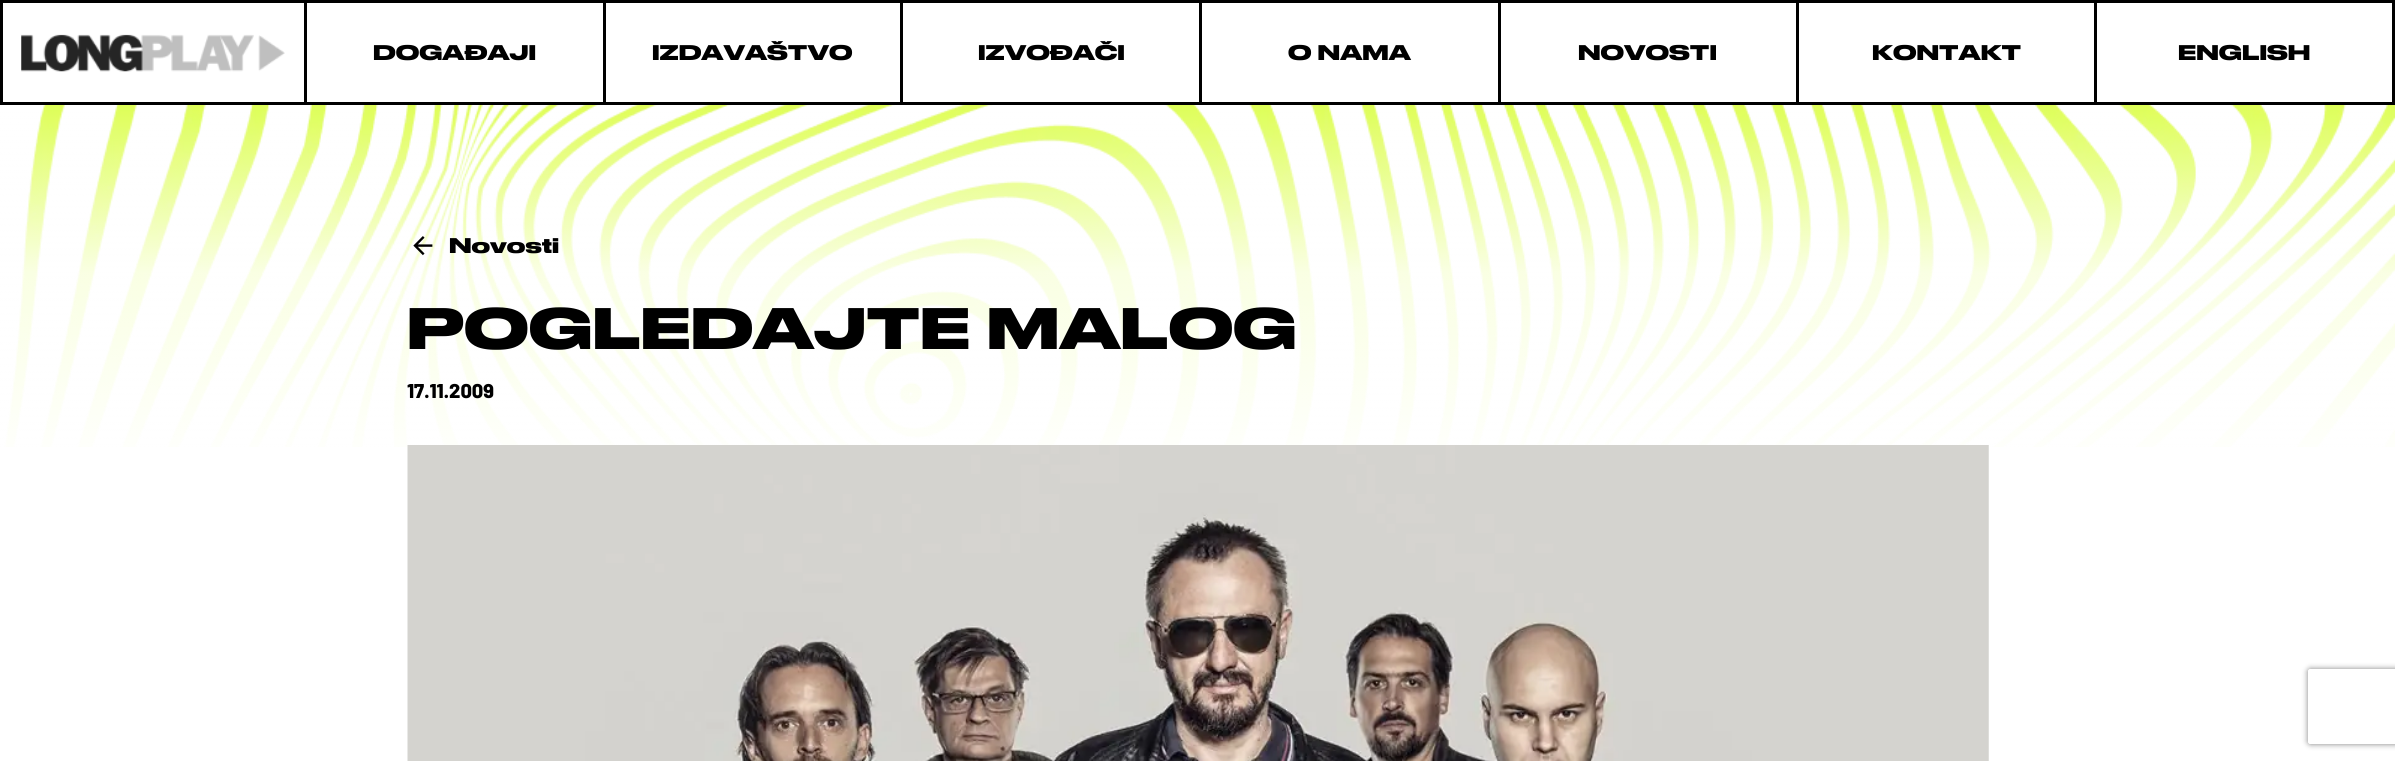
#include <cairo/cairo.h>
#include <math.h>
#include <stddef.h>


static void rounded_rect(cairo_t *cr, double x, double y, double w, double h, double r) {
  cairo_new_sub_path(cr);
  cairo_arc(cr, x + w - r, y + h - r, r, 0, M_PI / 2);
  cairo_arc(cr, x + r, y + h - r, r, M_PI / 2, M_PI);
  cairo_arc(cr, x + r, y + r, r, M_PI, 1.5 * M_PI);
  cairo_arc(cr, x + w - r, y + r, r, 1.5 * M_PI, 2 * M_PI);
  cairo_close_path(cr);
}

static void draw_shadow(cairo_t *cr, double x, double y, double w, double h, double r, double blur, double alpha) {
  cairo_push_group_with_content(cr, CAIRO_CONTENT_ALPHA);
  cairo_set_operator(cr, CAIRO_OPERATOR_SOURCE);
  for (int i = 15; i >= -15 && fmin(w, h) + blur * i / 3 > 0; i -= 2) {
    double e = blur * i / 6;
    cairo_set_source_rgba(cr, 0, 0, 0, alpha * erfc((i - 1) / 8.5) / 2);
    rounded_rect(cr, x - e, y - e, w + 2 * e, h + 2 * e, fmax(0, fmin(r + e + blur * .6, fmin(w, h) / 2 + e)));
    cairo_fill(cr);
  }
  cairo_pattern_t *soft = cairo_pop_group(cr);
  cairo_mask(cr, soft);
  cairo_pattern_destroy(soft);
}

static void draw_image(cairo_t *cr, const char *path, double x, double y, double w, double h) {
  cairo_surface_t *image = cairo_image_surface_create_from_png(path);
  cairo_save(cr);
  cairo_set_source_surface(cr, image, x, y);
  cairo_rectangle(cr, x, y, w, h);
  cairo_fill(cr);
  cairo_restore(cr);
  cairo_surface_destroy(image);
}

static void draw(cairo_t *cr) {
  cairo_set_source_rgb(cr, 1, 1, 1);
  cairo_paint(cr);
  cairo_rectangle(cr, 1.5, 1.5, 2392, 102);
  cairo_set_source_rgb(cr, 0, 0, 0);
  cairo_set_line_width(cr, 3);
  cairo_stroke(cr);
  draw_image(cr, "images/1.png", 21, 34, 264, 38);
  cairo_rectangle(cr, 304, 3, 3, 100);
  cairo_fill(cr);
  cairo_rectangle(cr, 603, 3, 3, 100);
  cairo_fill(cr);
  cairo_rectangle(cr, 900, 3, 3, 100);
  cairo_fill(cr);
  cairo_rectangle(cr, 1199, 3, 3, 100);
  cairo_fill(cr);
  cairo_rectangle(cr, 1498, 3, 3, 100);
  cairo_fill(cr);
  cairo_rectangle(cr, 1796, 3, 3, 100);
  cairo_fill(cr);
  cairo_rectangle(cr, 2094, 3, 3, 100);
  cairo_fill(cr);
  draw_image(cr, "images/2.png", 0, 105, 2395, 342);
  draw_image(cr, "images/3.png", 413, 236, 20, 20);
  draw_image(cr, "images/4.png", 407, 445, 1582, 316);
  cairo_save(cr);
  cairo_set_fill_rule(cr, CAIRO_FILL_RULE_EVEN_ODD);
  cairo_new_path(cr);
  cairo_move_to(cr, 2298, 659);
  cairo_line_to(cr, 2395, 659);
  cairo_line_to(cr, 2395, 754);
  cairo_line_to(cr, 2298, 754);
  cairo_close_path(cr);
  cairo_move_to(cr, 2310.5, 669);
  cairo_line_to(cr, 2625.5, 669);
  cairo_curve_to(cr, 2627, 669, 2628, 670, 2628, 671.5);
  cairo_line_to(cr, 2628, 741.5);
  cairo_curve_to(cr, 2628, 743, 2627, 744, 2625.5, 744);
  cairo_line_to(cr, 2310.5, 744);
  cairo_curve_to(cr, 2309, 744, 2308, 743, 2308, 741.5);
  cairo_line_to(cr, 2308, 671.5);
  cairo_curve_to(cr, 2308, 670, 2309, 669, 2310.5, 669);
  cairo_close_path(cr);
  cairo_clip(cr);
  cairo_set_source_rgb(cr, 128 / 255.0, 128 / 255.0, 128 / 255.0);
  draw_shadow(cr, 2308, 669, 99, 75, 2.5, 3, 1);
  cairo_restore(cr);
  cairo_select_font_face(cr, "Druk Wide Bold", CAIRO_FONT_SLANT_NORMAL, CAIRO_FONT_WEIGHT_BOLD);
  cairo_set_font_size(cr, 20);
  cairo_move_to(cr, 373, 60);
  cairo_show_text(cr, "DOGAĐAJI");
  cairo_move_to(cr, 652, 60);
  cairo_show_text(cr, "IZDAVAŠTVO");
  cairo_move_to(cr, 978, 60);
  cairo_show_text(cr, "IZVOĐAČI");
  cairo_move_to(cr, 1288, 60);
  cairo_show_text(cr, "O NAMA");
  cairo_move_to(cr, 1578, 60);
  cairo_show_text(cr, "NOVOSTI");
  cairo_move_to(cr, 1872, 60);
  cairo_show_text(cr, "KONTAKT");
  cairo_move_to(cr, 2178, 60);
  cairo_show_text(cr, "ENGLISH");
  cairo_move_to(cr, 449, 253);
  cairo_show_text(cr, "Novosti");
  cairo_set_font_size(cr, 55);
  cairo_move_to(cr, 407, 349);
  cairo_show_text(cr, "POGLEDAJTE MALOG");
  cairo_select_font_face(cr, "Barlow ExtraBold", CAIRO_FONT_SLANT_NORMAL, CAIRO_FONT_WEIGHT_NORMAL);
  cairo_set_font_size(cr, 20);
  cairo_move_to(cr, 407, 398);
  cairo_show_text(cr, "17.11.2009");
}

int main(void) {
  cairo_surface_t *surface = cairo_image_surface_create(CAIRO_FORMAT_RGB24, 2395, 761);
  cairo_t *cr = cairo_create(surface);
  cairo_font_options_t *options = cairo_font_options_create();
  cairo_font_options_set_hint_metrics(options, CAIRO_HINT_METRICS_OFF);
  cairo_font_options_set_hint_style(options, CAIRO_HINT_STYLE_NONE);
  cairo_set_font_options(cr, options);
  cairo_set_miter_limit(cr, 4);
  draw(cr);
  cairo_surface_write_to_png(surface, "out.png");
  cairo_font_options_destroy(options);
  cairo_destroy(cr);
  cairo_surface_destroy(surface);
  return 0;
}
